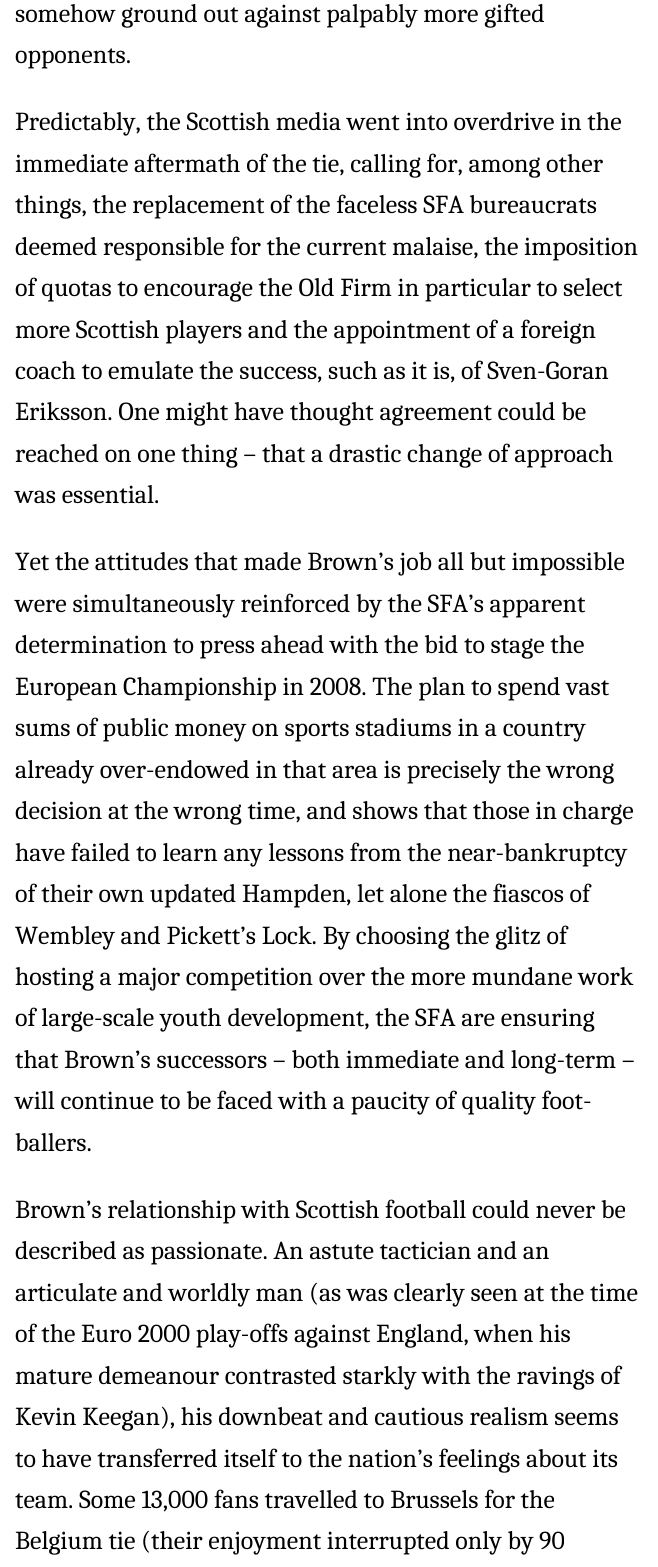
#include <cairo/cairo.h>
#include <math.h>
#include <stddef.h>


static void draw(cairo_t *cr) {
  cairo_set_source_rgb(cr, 1, 1, 1);
  cairo_paint(cr);
  cairo_select_font_face(cr, "Caladea", CAIRO_FONT_SLANT_NORMAL, CAIRO_FONT_WEIGHT_NORMAL);
  cairo_set_font_size(cr, 25.9);
  cairo_set_source_rgb(cr, 0, 0, 0);
  cairo_move_to(cr, 15, 22);
  cairo_show_text(cr, "somehow ground out against palpably more gifted");
  cairo_move_to(cr, 15, 63);
  cairo_show_text(cr, "opponents.");
  cairo_move_to(cr, 15, 130);
  cairo_show_text(cr, "Predictably, the Scottish media went into overdrive in the");
  cairo_move_to(cr, 15, 172);
  cairo_show_text(cr, "immediate aftermath of the tie, calling for, among other");
  cairo_move_to(cr, 15, 213);
  cairo_show_text(cr, "things, the replacement of the faceless SFA bureaucrats");
  cairo_move_to(cr, 15, 255);
  cairo_show_text(cr, "deemed responsible for the current malaise, the imposition");
  cairo_move_to(cr, 15, 296);
  cairo_show_text(cr, "of quotas to encourage the Old Firm in particular to select");
  cairo_move_to(cr, 15, 338);
  cairo_show_text(cr, "more Scottish players and the appointment of a foreign");
  cairo_move_to(cr, 15, 379);
  cairo_show_text(cr, "coach to emulate the success, such as it is, of Sven-Goran");
  cairo_move_to(cr, 15, 420);
  cairo_show_text(cr, "Eriksson. One might have thought agreement could be");
  cairo_move_to(cr, 15, 462);
  cairo_show_text(cr, "reached on one thing – that a drastic change of approach");
  cairo_move_to(cr, 15, 503);
  cairo_show_text(cr, "was essential.");
  cairo_move_to(cr, 15, 570);
  cairo_show_text(cr, "Yet the attitudes that made Brown’s job all but impossible");
  cairo_move_to(cr, 15, 612);
  cairo_show_text(cr, "were simultaneously reinforced by the SFA’s apparent");
  cairo_move_to(cr, 15, 653);
  cairo_show_text(cr, "determination to press ahead with the bid to stage the");
  cairo_move_to(cr, 15, 695);
  cairo_show_text(cr, "European Championship in 2008. The plan to spend vast");
  cairo_move_to(cr, 15, 736);
  cairo_show_text(cr, "sums of public money on sports stadiums in a country");
  cairo_move_to(cr, 15, 778);
  cairo_show_text(cr, "already over-endowed in that area is precisely the wrong");
  cairo_move_to(cr, 15, 819);
  cairo_show_text(cr, "decision at the wrong time, and shows that those in charge");
  cairo_move_to(cr, 15, 861);
  cairo_show_text(cr, "have failed to learn any lessons from the near-bankruptcy");
  cairo_move_to(cr, 15, 902);
  cairo_show_text(cr, "of their own updated Hampden, let alone the fiascos of");
  cairo_move_to(cr, 15, 944);
  cairo_show_text(cr, "Wembley and Pickett’s Lock. By choosing the glitz of");
  cairo_move_to(cr, 15, 985);
  cairo_show_text(cr, "hosting a major competition over the more mundane work");
  cairo_move_to(cr, 15, 1026);
  cairo_show_text(cr, "of large-scale youth development, the SFA are ensuring");
  cairo_move_to(cr, 15, 1068);
  cairo_show_text(cr, "that Brown’s successors – both immediate and long-term –");
  cairo_move_to(cr, 15, 1109);
  cairo_show_text(cr, "will continue to be faced with a paucity of quality foot-");
  cairo_move_to(cr, 15, 1151);
  cairo_show_text(cr, "ballers.");
  cairo_move_to(cr, 15, 1218);
  cairo_show_text(cr, "Brown’s relationship with Scottish football could never be");
  cairo_move_to(cr, 15, 1259);
  cairo_show_text(cr, "described as passionate. An astute tactician and an");
  cairo_move_to(cr, 15, 1301);
  cairo_show_text(cr, "articulate and worldly man (as was clearly seen at the time");
  cairo_move_to(cr, 15, 1342);
  cairo_show_text(cr, "of the Euro 2000 play-offs against England, when his");
  cairo_move_to(cr, 15, 1384);
  cairo_show_text(cr, "mature demeanour contrasted starkly with the ravings of");
  cairo_move_to(cr, 15, 1425);
  cairo_show_text(cr, "Kevin Keegan), his downbeat and cautious realism seems");
  cairo_move_to(cr, 15, 1467);
  cairo_show_text(cr, "to have transferred itself to the nation’s feelings about its");
  cairo_move_to(cr, 15, 1508);
  cairo_show_text(cr, "team. Some 13,000 fans travelled to Brussels for the");
  cairo_move_to(cr, 15, 1549);
  cairo_show_text(cr, "Belgium tie (their enjoyment interrupted only by 90");
}

int main(void) {
  cairo_surface_t *surface = cairo_image_surface_create(CAIRO_FORMAT_RGB24, 658, 1567);
  cairo_t *cr = cairo_create(surface);
  cairo_font_options_t *options = cairo_font_options_create();
  cairo_font_options_set_hint_metrics(options, CAIRO_HINT_METRICS_OFF);
  cairo_font_options_set_hint_style(options, CAIRO_HINT_STYLE_NONE);
  cairo_set_font_options(cr, options);
  cairo_set_miter_limit(cr, 4);
  draw(cr);
  cairo_surface_write_to_png(surface, "out.png");
  cairo_font_options_destroy(options);
  cairo_destroy(cr);
  cairo_surface_destroy(surface);
  return 0;
}
